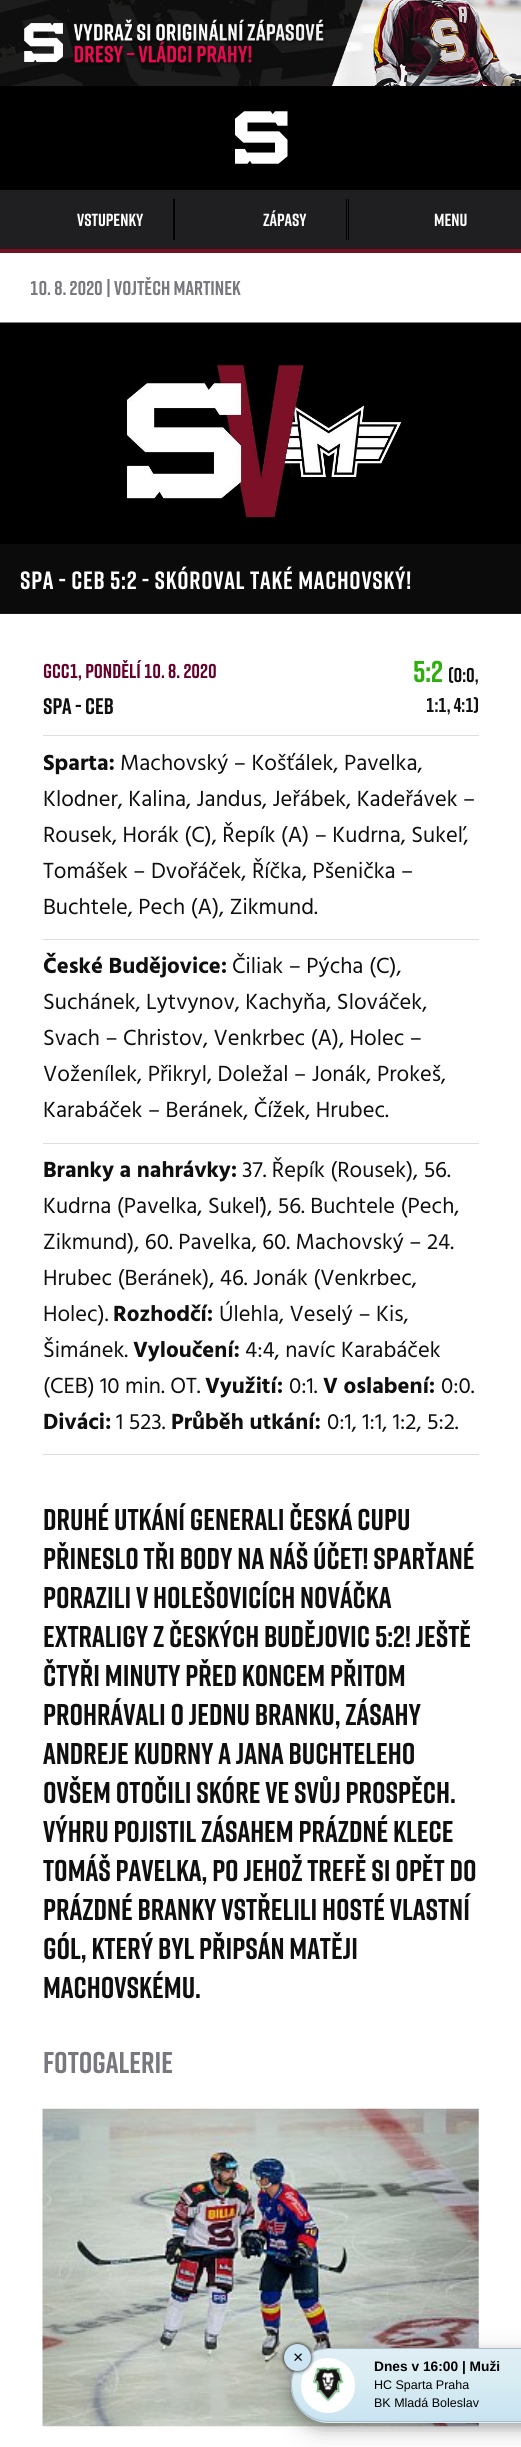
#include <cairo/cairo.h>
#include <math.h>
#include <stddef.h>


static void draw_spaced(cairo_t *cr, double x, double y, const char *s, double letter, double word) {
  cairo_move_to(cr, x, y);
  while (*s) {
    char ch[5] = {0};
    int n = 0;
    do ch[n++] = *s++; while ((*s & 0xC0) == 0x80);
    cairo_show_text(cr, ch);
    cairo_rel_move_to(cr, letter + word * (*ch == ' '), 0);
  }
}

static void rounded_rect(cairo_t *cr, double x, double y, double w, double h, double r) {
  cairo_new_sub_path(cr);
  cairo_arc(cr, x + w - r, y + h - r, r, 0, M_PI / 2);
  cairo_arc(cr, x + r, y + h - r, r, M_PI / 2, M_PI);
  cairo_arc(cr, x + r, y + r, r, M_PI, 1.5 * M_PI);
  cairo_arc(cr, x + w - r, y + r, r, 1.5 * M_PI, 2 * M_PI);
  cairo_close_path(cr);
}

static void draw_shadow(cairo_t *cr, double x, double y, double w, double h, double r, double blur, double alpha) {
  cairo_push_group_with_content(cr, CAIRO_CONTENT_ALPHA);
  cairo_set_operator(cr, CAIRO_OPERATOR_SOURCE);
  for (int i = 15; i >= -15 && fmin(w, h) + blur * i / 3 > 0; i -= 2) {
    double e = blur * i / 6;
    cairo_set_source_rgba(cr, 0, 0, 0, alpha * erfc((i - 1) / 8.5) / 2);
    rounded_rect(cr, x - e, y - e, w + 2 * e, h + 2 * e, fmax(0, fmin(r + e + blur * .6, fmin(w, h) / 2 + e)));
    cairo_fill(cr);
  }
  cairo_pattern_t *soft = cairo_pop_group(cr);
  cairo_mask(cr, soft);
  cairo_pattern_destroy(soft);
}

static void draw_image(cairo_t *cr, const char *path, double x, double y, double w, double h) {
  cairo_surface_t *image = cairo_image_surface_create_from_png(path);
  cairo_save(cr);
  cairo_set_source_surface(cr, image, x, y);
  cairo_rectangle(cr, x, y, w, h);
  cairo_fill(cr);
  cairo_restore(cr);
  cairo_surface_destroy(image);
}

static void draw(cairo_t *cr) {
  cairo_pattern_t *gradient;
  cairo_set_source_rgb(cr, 1, 1, 1);
  cairo_paint(cr);
  draw_image(cr, "images/1.png", 0, 0, 521, 86);
  cairo_set_source_rgb(cr, 0, 0, 0);
  cairo_rectangle(cr, 0, 86, 521, 104);
  cairo_fill(cr);
  cairo_set_source_rgb(cr, 122 / 255.0, 16 / 255.0, 38 / 255.0);
  cairo_rectangle(cr, 0, 249, 521, 4);
  cairo_fill(cr);
  draw_image(cr, "images/2.png", 235, 111, 53, 53);
  cairo_set_source_rgb(cr, 31 / 255.0, 31 / 255.0, 33 / 255.0);
  cairo_rectangle(cr, 0, 190, 521, 59);
  cairo_fill(cr);
  cairo_set_source_rgb(cr, 0, 0, 0);
  cairo_rectangle(cr, 173, 199, 2, 41);
  cairo_fill(cr);
  cairo_rectangle(cr, 346, 199, 1, 41);
  cairo_fill(cr);
  cairo_rectangle(cr, 348, 199, 1, 41);
  cairo_fill(cr);
  draw_image(cr, "images/3.png", 0, 322, 521, 292);
  cairo_set_source_rgba(cr, 15 / 255.0, 15 / 255.0, 16 / 255.0, 0.75);
  cairo_rectangle(cr, 0, 544, 521, 70);
  cairo_fill(cr);
  cairo_set_source_rgb(cr, 222 / 255.0, 222 / 255.0, 224 / 255.0);
  cairo_rectangle(cr, 43, 735, 436, 1);
  cairo_fill(cr);
  cairo_rectangle(cr, 43, 939, 436, 1);
  cairo_fill(cr);
  cairo_rectangle(cr, 43, 1143, 436, 1);
  cairo_fill(cr);
  cairo_rectangle(cr, 43, 1454, 436, 1);
  cairo_fill(cr);
  draw_image(cr, "images/4.png", 42, 2108, 437, 319);
  cairo_set_source_rgb(cr, 0, 0, 0);
  draw_shadow(cr, 291, 2355, 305, 75, 37.5, 12.5, 0.19);
  draw_shadow(cr, 291, 2353, 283, 75, 37.5, 5, 0.2);
  cairo_save(cr);
  cairo_new_path(cr);
  cairo_move_to(cr, 328.5, 2348);
  cairo_line_to(cr, 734, 2348);
  cairo_line_to(cr, 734, 2423);
  cairo_line_to(cr, 328.5, 2423);
  cairo_curve_to(cr, 308, 2423, 291, 2406, 291, 2385.5);
  cairo_curve_to(cr, 291, 2365, 308, 2348, 328.5, 2348);
  cairo_close_path(cr);
  cairo_clip(cr);
  gradient = cairo_pattern_create_linear(513, 2349, 513, 2421);
  cairo_pattern_add_color_stop_rgba(gradient, 0, 224 / 255.0, 237 / 255.0, 244 / 255.0, 1);
  cairo_pattern_add_color_stop_rgba(gradient, 0.4, 217 / 255.0, 237 / 255.0, 242 / 255.0, 1);
  cairo_pattern_add_color_stop_rgba(gradient, 1, 201 / 255.0, 227 / 255.0, 242 / 255.0, 1);
  cairo_set_source(cr, gradient);
  cairo_pattern_destroy(gradient);
  cairo_rectangle(cr, 291, 2349, 230, 72);
  cairo_fill(cr);
  gradient = cairo_pattern_create_linear(513, 2421, 513, 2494);
  cairo_pattern_add_color_stop_rgba(gradient, 0, 224 / 255.0, 237 / 255.0, 244 / 255.0, 1);
  cairo_pattern_add_color_stop_rgba(gradient, 0.4, 217 / 255.0, 237 / 255.0, 242 / 255.0, 1);
  cairo_pattern_add_color_stop_rgba(gradient, 1, 201 / 255.0, 227 / 255.0, 242 / 255.0, 1);
  cairo_set_source(cr, gradient);
  cairo_pattern_destroy(gradient);
  cairo_rectangle(cr, 316, 2421, 205, 2);
  cairo_fill(cr);
  cairo_restore(cr);
  cairo_set_source_rgb(cr, 170 / 255.0, 190 / 255.0, 202 / 255.0);
  cairo_set_fill_rule(cr, CAIRO_FILL_RULE_EVEN_ODD);
  cairo_new_path(cr);
  cairo_move_to(cr, 329, 2348);
  cairo_line_to(cr, 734, 2348);
  cairo_line_to(cr, 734, 2422);
  cairo_line_to(cr, 329, 2422);
  cairo_curve_to(cr, 308, 2422, 291, 2406, 291, 2385);
  cairo_curve_to(cr, 291, 2364, 308, 2348, 329, 2348);
  cairo_close_path(cr);
  cairo_move_to(cr, 329, 2349);
  cairo_line_to(cr, 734, 2349);
  cairo_line_to(cr, 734, 2421);
  cairo_line_to(cr, 329, 2421);
  cairo_curve_to(cr, 309, 2421, 292, 2405, 292, 2385);
  cairo_curve_to(cr, 292, 2365, 309, 2349, 329, 2349);
  cairo_close_path(cr);
  cairo_fill(cr);
  cairo_set_source_rgb(cr, 1, 1, 1);
  rounded_rect(cr, 301, 2358, 54, 55, 27);
  cairo_fill(cr);
  draw_image(cr, "images/5.png", 312, 2367, 32, 35);
  cairo_set_source_rgb(cr, 0, 0, 0);
  draw_shadow(cr, 284, 2344, 27, 27, 13.5, 2, 1);
  cairo_set_source_rgb(cr, 205 / 255.0, 229 / 255.0, 242 / 255.0);
  cairo_arc(cr, 297.5, 2357.5, 13.5, 0, 2 * M_PI);
  cairo_fill(cr);
  cairo_select_font_face(cr, "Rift", CAIRO_FONT_SLANT_NORMAL, CAIRO_FONT_WEIGHT_BOLD);
  cairo_set_font_size(cr, 17.5);
  cairo_set_source_rgb(cr, 1, 1, 1);
  cairo_move_to(cr, 77, 226);
  cairo_show_text(cr, "VSTUPENKY");
  cairo_move_to(cr, 263, 226);
  cairo_show_text(cr, "ZÁPASY");
  cairo_move_to(cr, 434, 226);
  cairo_show_text(cr, "Menu");
  cairo_set_font_size(cr, 20);
  cairo_set_source_rgb(cr, 120 / 255.0, 120 / 255.0, 127 / 255.0);
  cairo_move_to(cr, 30, 295);
  cairo_show_text(cr, "10. 8. 2020 | Vojtěch Martinek");
  cairo_set_font_size(cr, 25);
  cairo_set_source_rgb(cr, 1, 1, 1);
  draw_spaced(cr, 20, 589, "SPA - CEB 5:2 - SKÓROVAL TAKÉ MACHOVSKÝ!", 0.75, 0);
  cairo_set_font_size(cr, 20);
  cairo_set_source_rgb(cr, 102 / 255.0, 0, 44 / 255.0);
  cairo_move_to(cr, 43, 678);
  cairo_show_text(cr, "GCC1, pondělí 10. 8. 2020");
  cairo_set_font_size(cr, 22.5);
  cairo_set_source_rgb(cr, 15 / 255.0, 15 / 255.0, 16 / 255.0);
  cairo_move_to(cr, 43, 714);
  cairo_show_text(cr, "SPA - CEB");
  cairo_set_font_size(cr, 30);
  cairo_set_source_rgb(cr, 45 / 255.0, 176 / 255.0, 15 / 255.0);
  cairo_move_to(cr, 413, 682);
  cairo_show_text(cr, "5:2");
  cairo_set_font_size(cr, 20);
  cairo_set_source_rgb(cr, 15 / 255.0, 15 / 255.0, 16 / 255.0);
  cairo_move_to(cr, 448, 682);
  cairo_show_text(cr, "(0:0,");
  cairo_move_to(cr, 426, 712);
  cairo_show_text(cr, "1:1, 4:1)");
  cairo_select_font_face(cr, "Hind", CAIRO_FONT_SLANT_NORMAL, CAIRO_FONT_WEIGHT_BOLD);
  cairo_set_font_size(cr, 22.5);
  cairo_move_to(cr, 43, 770);
  cairo_show_text(cr, "Sparta:");
  cairo_select_font_face(cr, "Hind", CAIRO_FONT_SLANT_NORMAL, CAIRO_FONT_WEIGHT_NORMAL);
  cairo_move_to(cr, 120, 770);
  cairo_show_text(cr, "Machovský – Košťálek, Pavelka,");
  cairo_move_to(cr, 43, 806);
  cairo_show_text(cr, "Klodner, Kalina, Jandus, Jeřábek, Kadeřávek –");
  cairo_move_to(cr, 43, 842);
  cairo_show_text(cr, "Rousek, Horák (C), Řepík (A) – Kudrna, Sukeľ,");
  cairo_move_to(cr, 43, 878);
  cairo_show_text(cr, "Tomášek – Dvořáček, Říčka, Pšenička –");
  cairo_move_to(cr, 43, 914);
  cairo_show_text(cr, "Buchtele, Pech (A), Zikmund.");
  cairo_select_font_face(cr, "Hind", CAIRO_FONT_SLANT_NORMAL, CAIRO_FONT_WEIGHT_BOLD);
  cairo_move_to(cr, 43, 973);
  cairo_show_text(cr, "České Budějovice:");
  cairo_select_font_face(cr, "Hind", CAIRO_FONT_SLANT_NORMAL, CAIRO_FONT_WEIGHT_NORMAL);
  cairo_move_to(cr, 232, 973);
  cairo_show_text(cr, "Čiliak – Pýcha (C),");
  cairo_move_to(cr, 43, 1009);
  cairo_show_text(cr, "Suchánek, Lytvynov, Kachyňa, Slováček,");
  cairo_move_to(cr, 43, 1045);
  cairo_show_text(cr, "Svach – Christov, Venkrbec (A), Holec –");
  cairo_move_to(cr, 43, 1081);
  cairo_show_text(cr, "Voženílek, Přikryl, Doležal – Jonák, Prokeš,");
  cairo_move_to(cr, 43, 1117);
  cairo_show_text(cr, "Karabáček – Beránek, Čížek, Hrubec.");
  cairo_select_font_face(cr, "Hind", CAIRO_FONT_SLANT_NORMAL, CAIRO_FONT_WEIGHT_BOLD);
  cairo_move_to(cr, 43, 1177);
  cairo_show_text(cr, "Branky a nahrávky:");
  cairo_select_font_face(cr, "Hind", CAIRO_FONT_SLANT_NORMAL, CAIRO_FONT_WEIGHT_NORMAL);
  cairo_move_to(cr, 242, 1177);
  cairo_show_text(cr, "37. Řepík (Rousek), 56.");
  cairo_move_to(cr, 43, 1213);
  cairo_show_text(cr, "Kudrna (Pavelka, Sukeľ), 56. Buchtele (Pech,");
  cairo_move_to(cr, 43, 1249);
  cairo_show_text(cr, "Zikmund), 60. Pavelka, 60. Machovský – 24.");
  cairo_move_to(cr, 43, 1285);
  cairo_show_text(cr, "Hrubec (Beránek), 46. Jonák (Venkrbec,");
  cairo_move_to(cr, 43, 1321);
  cairo_show_text(cr, "Holec).");
  cairo_select_font_face(cr, "Hind", CAIRO_FONT_SLANT_NORMAL, CAIRO_FONT_WEIGHT_BOLD);
  cairo_move_to(cr, 113, 1321);
  cairo_show_text(cr, "Rozhodčí:");
  cairo_select_font_face(cr, "Hind", CAIRO_FONT_SLANT_NORMAL, CAIRO_FONT_WEIGHT_NORMAL);
  cairo_move_to(cr, 219, 1321);
  cairo_show_text(cr, "Úlehla, Veselý – Kis,");
  cairo_move_to(cr, 43, 1357);
  cairo_show_text(cr, "Šimánek.");
  cairo_select_font_face(cr, "Hind", CAIRO_FONT_SLANT_NORMAL, CAIRO_FONT_WEIGHT_BOLD);
  cairo_move_to(cr, 133, 1357);
  cairo_show_text(cr, "Vyloučení:");
  cairo_select_font_face(cr, "Hind", CAIRO_FONT_SLANT_NORMAL, CAIRO_FONT_WEIGHT_NORMAL);
  cairo_move_to(cr, 245, 1357);
  cairo_show_text(cr, "4:4, navíc Karabáček");
  cairo_move_to(cr, 43, 1393);
  cairo_show_text(cr, "(CEB) 10 min. OT.");
  cairo_select_font_face(cr, "Hind", CAIRO_FONT_SLANT_NORMAL, CAIRO_FONT_WEIGHT_BOLD);
  cairo_move_to(cr, 205, 1393);
  cairo_show_text(cr, "Využití:");
  cairo_select_font_face(cr, "Hind", CAIRO_FONT_SLANT_NORMAL, CAIRO_FONT_WEIGHT_NORMAL);
  cairo_move_to(cr, 289, 1393);
  cairo_show_text(cr, "0:1.");
  cairo_select_font_face(cr, "Hind", CAIRO_FONT_SLANT_NORMAL, CAIRO_FONT_WEIGHT_BOLD);
  cairo_move_to(cr, 323, 1393);
  cairo_show_text(cr, "V oslabení:");
  cairo_select_font_face(cr, "Hind", CAIRO_FONT_SLANT_NORMAL, CAIRO_FONT_WEIGHT_NORMAL);
  cairo_move_to(cr, 441, 1393);
  cairo_show_text(cr, "0:0.");
  cairo_select_font_face(cr, "Hind", CAIRO_FONT_SLANT_NORMAL, CAIRO_FONT_WEIGHT_BOLD);
  cairo_move_to(cr, 43, 1429);
  cairo_show_text(cr, "Diváci:");
  cairo_select_font_face(cr, "Hind", CAIRO_FONT_SLANT_NORMAL, CAIRO_FONT_WEIGHT_NORMAL);
  cairo_move_to(cr, 116, 1429);
  cairo_show_text(cr, "1 523.");
  cairo_select_font_face(cr, "Hind", CAIRO_FONT_SLANT_NORMAL, CAIRO_FONT_WEIGHT_BOLD);
  cairo_move_to(cr, 171, 1429);
  cairo_show_text(cr, "Průběh utkání:");
  cairo_select_font_face(cr, "Hind", CAIRO_FONT_SLANT_NORMAL, CAIRO_FONT_WEIGHT_NORMAL);
  cairo_move_to(cr, 327, 1429);
  cairo_show_text(cr, "0:1, 1:1, 1:2, 5:2.");
  cairo_select_font_face(cr, "Rift", CAIRO_FONT_SLANT_NORMAL, CAIRO_FONT_WEIGHT_BOLD);
  cairo_set_font_size(cr, 30);
  cairo_move_to(cr, 43, 1530);
  cairo_show_text(cr, "Druhé utkání Generali Česká Cupu");
  cairo_move_to(cr, 43, 1569);
  cairo_show_text(cr, "přineslo tři body na náš účet! Sparťané");
  cairo_move_to(cr, 43, 1608);
  cairo_show_text(cr, "porazili v Holešovicích nováčka");
  cairo_move_to(cr, 43, 1647);
  cairo_show_text(cr, "extraligy z Českých Budějovic 5:2! Ještě");
  cairo_move_to(cr, 43, 1686);
  cairo_show_text(cr, "čtyři minuty před koncem přitom");
  cairo_move_to(cr, 43, 1725);
  cairo_show_text(cr, "prohrávali o jednu branku, zásahy");
  cairo_move_to(cr, 43, 1764);
  cairo_show_text(cr, "Andreje Kudrny a Jana Buchteleho");
  cairo_move_to(cr, 43, 1803);
  cairo_show_text(cr, "ovšem otočili skóre ve svůj prospěch.");
  cairo_move_to(cr, 43, 1842);
  cairo_show_text(cr, "Výhru pojistil zásahem prázdné klece");
  cairo_move_to(cr, 43, 1881);
  cairo_show_text(cr, "Tomáš Pavelka, po jehož trefě si opět do");
  cairo_move_to(cr, 43, 1920);
  cairo_show_text(cr, "prázdné branky vstřelili hosté vlastní");
  cairo_move_to(cr, 43, 1959);
  cairo_show_text(cr, "gól, který byl připsán Matěji");
  cairo_move_to(cr, 43, 1998);
  cairo_show_text(cr, "Machovskému.");
  cairo_set_source_rgb(cr, 120 / 255.0, 120 / 255.0, 127 / 255.0);
  cairo_move_to(cr, 43, 2073);
  cairo_show_text(cr, "Fotogalerie");
  cairo_select_font_face(cr, "Liberation Sans", CAIRO_FONT_SLANT_NORMAL, CAIRO_FONT_WEIGHT_NORMAL);
  cairo_set_font_size(cr, 17.5);
  cairo_set_source_rgb(cr, 0, 0, 0);
  cairo_move_to(cr, 293, 2363);
  cairo_show_text(cr, "×");
  cairo_select_font_face(cr, "Liberation Sans", CAIRO_FONT_SLANT_NORMAL, CAIRO_FONT_WEIGHT_BOLD);
  cairo_set_font_size(cr, 13.75);
  cairo_move_to(cr, 374, 2371);
  cairo_show_text(cr, "Dnes v 16:00 | Muži");
  cairo_select_font_face(cr, "Liberation Sans", CAIRO_FONT_SLANT_NORMAL, CAIRO_FONT_WEIGHT_NORMAL);
  cairo_set_font_size(cr, 12.5);
  cairo_move_to(cr, 374, 2389);
  cairo_show_text(cr, "HC Sparta Praha");
  cairo_move_to(cr, 374, 2407);
  cairo_show_text(cr, "BK Mladá Boleslav");
}

int main(void) {
  cairo_surface_t *surface = cairo_image_surface_create(CAIRO_FORMAT_RGB24, 521, 2447);
  cairo_t *cr = cairo_create(surface);
  cairo_font_options_t *options = cairo_font_options_create();
  cairo_font_options_set_hint_metrics(options, CAIRO_HINT_METRICS_OFF);
  cairo_font_options_set_hint_style(options, CAIRO_HINT_STYLE_NONE);
  cairo_set_font_options(cr, options);
  cairo_set_miter_limit(cr, 4);
  draw(cr);
  cairo_surface_write_to_png(surface, "out.png");
  cairo_font_options_destroy(options);
  cairo_destroy(cr);
  cairo_surface_destroy(surface);
  return 0;
}
